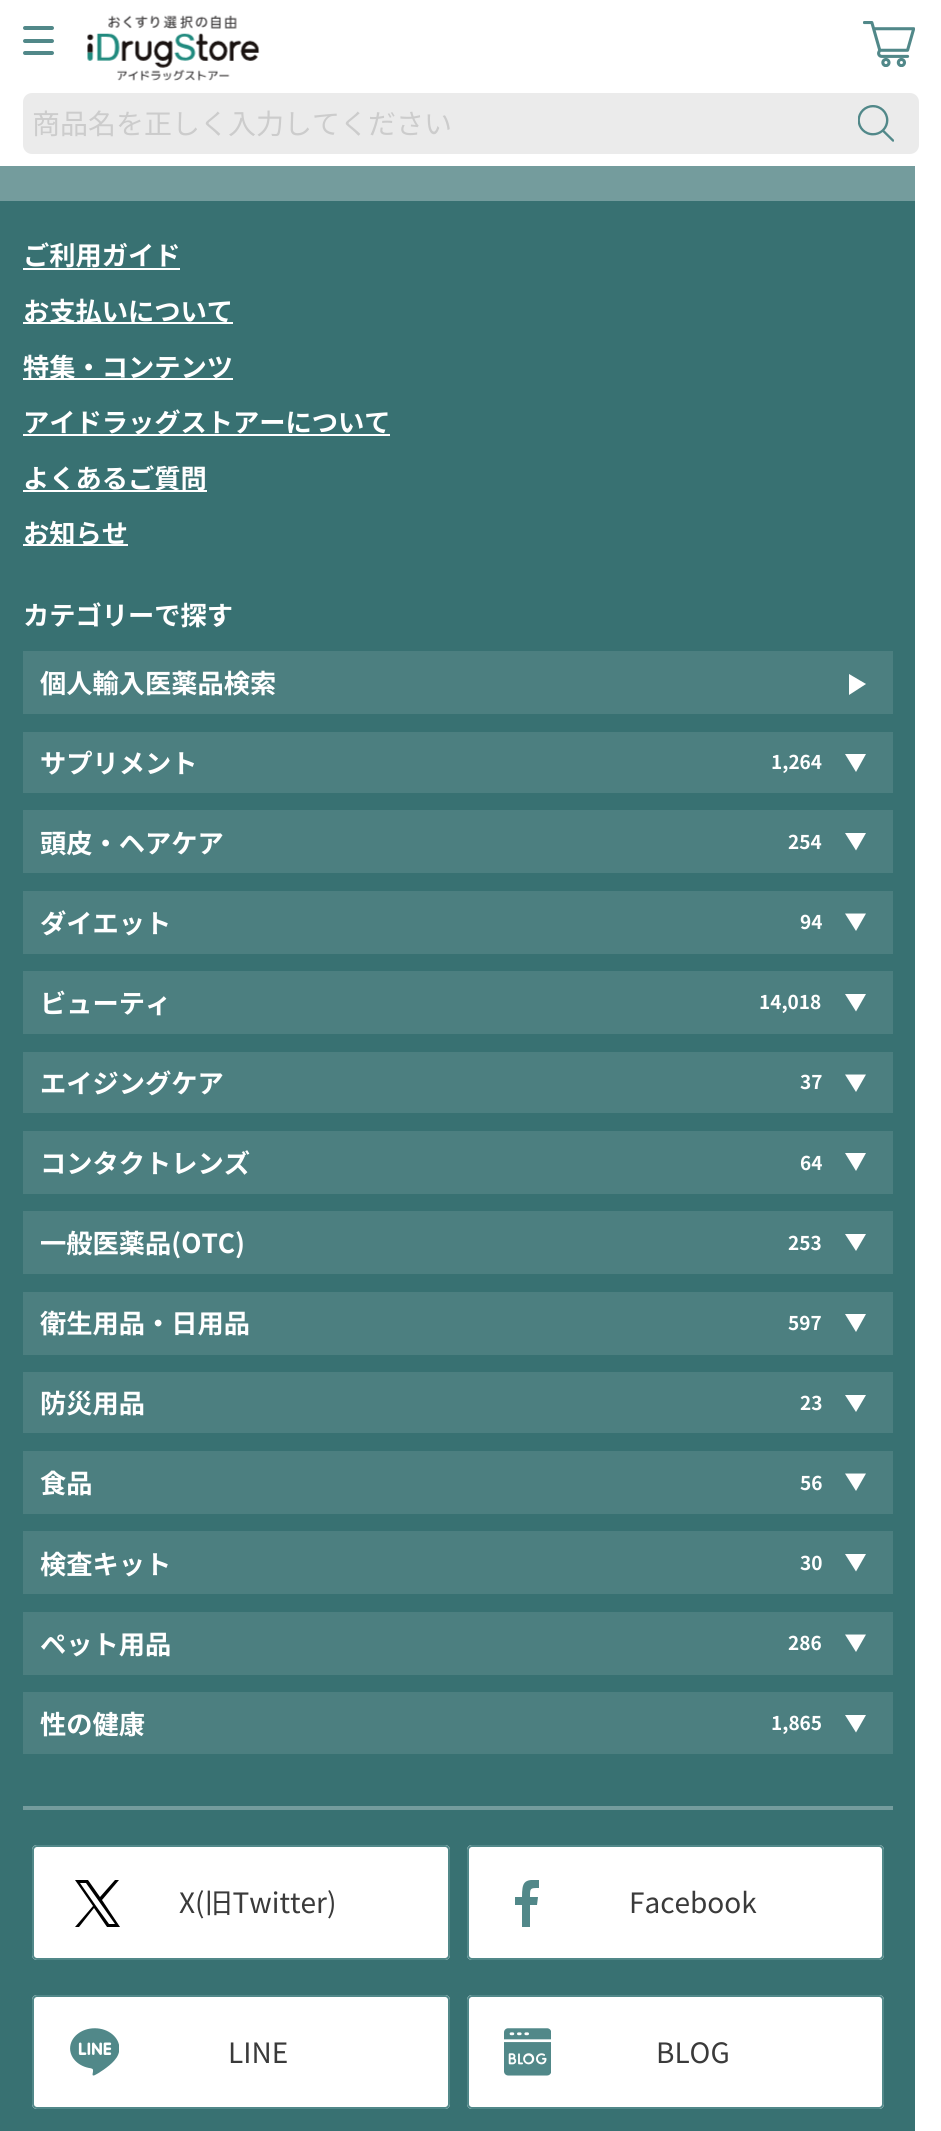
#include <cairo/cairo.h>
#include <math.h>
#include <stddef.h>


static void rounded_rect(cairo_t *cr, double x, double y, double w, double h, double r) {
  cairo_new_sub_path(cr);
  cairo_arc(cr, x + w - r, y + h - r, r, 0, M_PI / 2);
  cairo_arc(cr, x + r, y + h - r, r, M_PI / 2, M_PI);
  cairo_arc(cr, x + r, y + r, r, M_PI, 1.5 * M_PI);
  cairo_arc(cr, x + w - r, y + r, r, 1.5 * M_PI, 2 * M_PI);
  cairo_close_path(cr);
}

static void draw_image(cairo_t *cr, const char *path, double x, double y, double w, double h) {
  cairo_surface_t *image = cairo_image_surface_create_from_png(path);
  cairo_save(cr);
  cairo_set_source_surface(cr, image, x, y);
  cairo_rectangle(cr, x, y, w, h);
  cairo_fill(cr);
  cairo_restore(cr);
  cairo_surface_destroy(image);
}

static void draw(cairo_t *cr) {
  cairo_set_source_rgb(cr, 1, 1, 1);
  cairo_paint(cr);
  cairo_set_source_rgb(cr, 81 / 255.0, 136 / 255.0, 137 / 255.0);
  rounded_rect(cr, 23, 26, 31, 4, 2);
  cairo_fill(cr);
  rounded_rect(cr, 23, 39, 31, 4, 2);
  cairo_fill(cr);
  rounded_rect(cr, 23, 51, 31, 4, 2);
  cairo_fill(cr);
  draw_image(cr, "images/1.png", 87, 15, 173, 66);
  draw_image(cr, "images/2.png", 863, 21, 52, 46);
  cairo_set_source_rgb(cr, 235 / 255.0, 235 / 255.0, 235 / 255.0);
  rounded_rect(cr, 23, 93, 896, 61, 9);
  cairo_fill(cr);
  draw_image(cr, "images/3.png", 858, 105, 36, 37);
  cairo_set_source_rgb(cr, 56 / 255.0, 113 / 255.0, 114 / 255.0);
  cairo_rectangle(cr, 0, 201, 915, 1930);
  cairo_fill(cr);
  cairo_set_source_rgb(cr, 116 / 255.0, 156 / 255.0, 157 / 255.0);
  cairo_rectangle(cr, 0, 166, 915, 35);
  cairo_fill(cr);
  cairo_rectangle(cr, 23, 1806, 870, 4);
  cairo_fill(cr);
  cairo_set_source_rgb(cr, 1, 1, 1);
  cairo_rectangle(cr, 23, 268, 157, 2);
  cairo_fill(cr);
  cairo_rectangle(cr, 23, 322, 210, 2);
  cairo_fill(cr);
  cairo_rectangle(cr, 23, 378, 210, 2);
  cairo_fill(cr);
  cairo_rectangle(cr, 23, 434, 367, 2);
  cairo_fill(cr);
  cairo_rectangle(cr, 23, 490, 184, 2);
  cairo_fill(cr);
  cairo_rectangle(cr, 23, 544, 105, 2);
  cairo_fill(cr);
  cairo_set_source_rgb(cr, 76 / 255.0, 127 / 255.0, 128 / 255.0);
  cairo_rectangle(cr, 23, 651, 870, 63);
  cairo_fill(cr);
  cairo_set_source_rgb(cr, 1, 1, 1);
  cairo_new_path(cr);
  cairo_move_to(cr, 849, 695);
  cairo_line_to(cr, 849, 674);
  cairo_line_to(cr, 866, 684);
  cairo_close_path(cr);
  cairo_fill(cr);
  cairo_set_source_rgb(cr, 76 / 255.0, 127 / 255.0, 128 / 255.0);
  cairo_rectangle(cr, 23, 732, 870, 61);
  cairo_fill(cr);
  cairo_set_source_rgb(cr, 1, 1, 1);
  cairo_new_path(cr);
  cairo_move_to(cr, 845, 754);
  cairo_line_to(cr, 866, 754);
  cairo_line_to(cr, 856, 772);
  cairo_close_path(cr);
  cairo_fill(cr);
  cairo_set_source_rgb(cr, 76 / 255.0, 127 / 255.0, 128 / 255.0);
  cairo_rectangle(cr, 23, 810, 870, 63);
  cairo_fill(cr);
  cairo_set_source_rgb(cr, 1, 1, 1);
  cairo_new_path(cr);
  cairo_move_to(cr, 845, 833);
  cairo_line_to(cr, 866, 833);
  cairo_line_to(cr, 856, 850.5);
  cairo_close_path(cr);
  cairo_fill(cr);
  cairo_set_source_rgb(cr, 76 / 255.0, 127 / 255.0, 128 / 255.0);
  cairo_rectangle(cr, 23, 891, 870, 63);
  cairo_fill(cr);
  cairo_set_source_rgb(cr, 1, 1, 1);
  cairo_new_path(cr);
  cairo_move_to(cr, 845, 913.5);
  cairo_line_to(cr, 866, 913.5);
  cairo_line_to(cr, 856, 931);
  cairo_close_path(cr);
  cairo_fill(cr);
  cairo_set_source_rgb(cr, 76 / 255.0, 127 / 255.0, 128 / 255.0);
  cairo_rectangle(cr, 23, 971, 870, 63);
  cairo_fill(cr);
  cairo_set_source_rgb(cr, 1, 1, 1);
  cairo_new_path(cr);
  cairo_move_to(cr, 845, 994);
  cairo_line_to(cr, 866, 994);
  cairo_line_to(cr, 856, 1011.5);
  cairo_close_path(cr);
  cairo_fill(cr);
  cairo_set_source_rgb(cr, 76 / 255.0, 127 / 255.0, 128 / 255.0);
  cairo_rectangle(cr, 23, 1052, 870, 61);
  cairo_fill(cr);
  cairo_set_source_rgb(cr, 1, 1, 1);
  cairo_new_path(cr);
  cairo_move_to(cr, 845, 1074.5);
  cairo_line_to(cr, 866, 1074.5);
  cairo_line_to(cr, 856, 1092);
  cairo_close_path(cr);
  cairo_fill(cr);
  cairo_set_source_rgb(cr, 76 / 255.0, 127 / 255.0, 128 / 255.0);
  cairo_rectangle(cr, 23, 1131, 870, 63);
  cairo_fill(cr);
  cairo_set_source_rgb(cr, 1, 1, 1);
  cairo_new_path(cr);
  cairo_move_to(cr, 845, 1153);
  cairo_line_to(cr, 866, 1153);
  cairo_line_to(cr, 856, 1171);
  cairo_close_path(cr);
  cairo_fill(cr);
  cairo_set_source_rgb(cr, 76 / 255.0, 127 / 255.0, 128 / 255.0);
  cairo_rectangle(cr, 23, 1211, 870, 63);
  cairo_fill(cr);
  cairo_set_source_rgb(cr, 1, 1, 1);
  cairo_new_path(cr);
  cairo_move_to(cr, 845, 1234);
  cairo_line_to(cr, 866, 1234);
  cairo_line_to(cr, 856, 1251);
  cairo_close_path(cr);
  cairo_fill(cr);
  cairo_set_source_rgb(cr, 76 / 255.0, 127 / 255.0, 128 / 255.0);
  cairo_rectangle(cr, 23, 1292, 870, 63);
  cairo_fill(cr);
  cairo_set_source_rgb(cr, 1, 1, 1);
  cairo_new_path(cr);
  cairo_move_to(cr, 845, 1314);
  cairo_line_to(cr, 866, 1314);
  cairo_line_to(cr, 856, 1332);
  cairo_close_path(cr);
  cairo_fill(cr);
  cairo_set_source_rgb(cr, 76 / 255.0, 127 / 255.0, 128 / 255.0);
  cairo_rectangle(cr, 23, 1372, 870, 61);
  cairo_fill(cr);
  cairo_set_source_rgb(cr, 1, 1, 1);
  cairo_new_path(cr);
  cairo_move_to(cr, 845, 1395);
  cairo_line_to(cr, 866, 1395);
  cairo_line_to(cr, 856, 1412);
  cairo_close_path(cr);
  cairo_fill(cr);
  cairo_set_source_rgb(cr, 76 / 255.0, 127 / 255.0, 128 / 255.0);
  cairo_rectangle(cr, 23, 1451, 870, 63);
  cairo_fill(cr);
  cairo_set_source_rgb(cr, 1, 1, 1);
  cairo_new_path(cr);
  cairo_move_to(cr, 845, 1473.5);
  cairo_line_to(cr, 866, 1473.5);
  cairo_line_to(cr, 856, 1491);
  cairo_close_path(cr);
  cairo_fill(cr);
  cairo_set_source_rgb(cr, 76 / 255.0, 127 / 255.0, 128 / 255.0);
  cairo_rectangle(cr, 23, 1531, 870, 63);
  cairo_fill(cr);
  cairo_set_source_rgb(cr, 1, 1, 1);
  cairo_new_path(cr);
  cairo_move_to(cr, 845, 1554);
  cairo_line_to(cr, 866, 1554);
  cairo_line_to(cr, 856, 1571.5);
  cairo_close_path(cr);
  cairo_fill(cr);
  cairo_set_source_rgb(cr, 76 / 255.0, 127 / 255.0, 128 / 255.0);
  cairo_rectangle(cr, 23, 1612, 870, 63);
  cairo_fill(cr);
  cairo_set_source_rgb(cr, 1, 1, 1);
  cairo_new_path(cr);
  cairo_move_to(cr, 845, 1634.5);
  cairo_line_to(cr, 866, 1634.5);
  cairo_line_to(cr, 856, 1652);
  cairo_close_path(cr);
  cairo_fill(cr);
  cairo_set_source_rgb(cr, 76 / 255.0, 127 / 255.0, 128 / 255.0);
  cairo_rectangle(cr, 23, 1692, 870, 62);
  cairo_fill(cr);
  cairo_set_source_rgb(cr, 1, 1, 1);
  cairo_new_path(cr);
  cairo_move_to(cr, 845, 1715);
  cairo_line_to(cr, 866, 1715);
  cairo_line_to(cr, 856, 1732.5);
  cairo_close_path(cr);
  cairo_fill(cr);
  rounded_rect(cr, 32, 1845, 418, 115, 5);
  cairo_fill(cr);
  cairo_set_source_rgb(cr, 0, 0, 0);
  cairo_new_path(cr);
  cairo_move_to(cr, 102, 1900);
  cairo_line_to(cr, 119, 1880);
  cairo_line_to(cr, 115, 1880);
  cairo_line_to(cr, 100, 1897);
  cairo_line_to(cr, 88, 1880);
  cairo_line_to(cr, 75, 1880);
  cairo_line_to(cr, 93, 1906);
  cairo_line_to(cr, 75, 1927);
  cairo_line_to(cr, 79, 1927);
  cairo_line_to(cr, 94, 1908);
  cairo_line_to(cr, 107, 1927);
  cairo_line_to(cr, 120, 1927);
  cairo_close_path(cr);
  cairo_move_to(cr, 96, 1906);
  cairo_line_to(cr, 80, 1883);
  cairo_line_to(cr, 86, 1883);
  cairo_line_to(cr, 115, 1924);
  cairo_line_to(cr, 109, 1924);
  cairo_close_path(cr);
  cairo_fill(cr);
  rounded_rect(cr, 33, 1846, 416, 113, 4);
  cairo_set_source_rgb(cr, 81 / 255.0, 136 / 255.0, 137 / 255.0);
  cairo_stroke(cr);
  cairo_set_source_rgb(cr, 1, 1, 1);
  rounded_rect(cr, 467, 1845, 417, 115, 5);
  cairo_fill(cr);
  cairo_save(cr);
  cairo_rectangle(cr, 515, 1880, 24, 47);
  cairo_clip(cr);
  cairo_set_source_rgb(cr, 81 / 255.0, 136 / 255.0, 137 / 255.0);
  cairo_new_path(cr);
  cairo_move_to(cr, 530, 1927);
  cairo_line_to(cr, 530, 1905);
  cairo_line_to(cr, 537, 1905);
  cairo_line_to(cr, 538, 1897);
  cairo_line_to(cr, 530, 1897);
  cairo_curve_to(cr, 530, 1888, 530, 1888, 539, 1888);
  cairo_line_to(cr, 539, 1880);
  cairo_curve_to(cr, 524, 1879, 522, 1882, 522, 1897);
  cairo_line_to(cr, 514, 1897);
  cairo_line_to(cr, 514, 1905);
  cairo_line_to(cr, 522, 1905);
  cairo_line_to(cr, 522, 1927);
  cairo_close_path(cr);
  cairo_fill(cr);
  cairo_restore(cr);
  rounded_rect(cr, 468, 1846, 415, 113, 4);
  cairo_set_source_rgb(cr, 81 / 255.0, 136 / 255.0, 137 / 255.0);
  cairo_stroke(cr);
  cairo_set_source_rgb(cr, 1, 1, 1);
  rounded_rect(cr, 32, 1995, 418, 114, 5);
  cairo_fill(cr);
  draw_image(cr, "images/4.png", 70, 2028, 49, 48);
  rounded_rect(cr, 33, 1996, 416, 112, 4);
  cairo_set_source_rgb(cr, 81 / 255.0, 136 / 255.0, 137 / 255.0);
  cairo_stroke(cr);
  cairo_set_source_rgb(cr, 1, 1, 1);
  rounded_rect(cr, 467, 1995, 417, 114, 5);
  cairo_fill(cr);
  draw_image(cr, "images/5.png", 504, 2028, 47, 48);
  rounded_rect(cr, 468, 1996, 415, 112, 4);
  cairo_set_source_rgb(cr, 81 / 255.0, 136 / 255.0, 137 / 255.0);
  cairo_stroke(cr);
  cairo_select_font_face(cr, "Noto Sans JP", CAIRO_FONT_SLANT_NORMAL, CAIRO_FONT_WEIGHT_NORMAL);
  cairo_set_font_size(cr, 28);
  cairo_set_source_rgb(cr, 204 / 255.0, 204 / 255.0, 204 / 255.0);
  cairo_move_to(cr, 32, 134);
  cairo_show_text(cr, "商品名を正しく入力してください");
  cairo_select_font_face(cr, "Noto Sans JP", CAIRO_FONT_SLANT_NORMAL, CAIRO_FONT_WEIGHT_BOLD);
  cairo_set_font_size(cr, 26.25);
  cairo_set_source_rgb(cr, 1, 1, 1);
  cairo_move_to(cr, 23, 265);
  cairo_show_text(cr, "ご利用ガイド");
  cairo_move_to(cr, 23, 321);
  cairo_show_text(cr, "お支払いについて");
  cairo_move_to(cr, 23, 377);
  cairo_show_text(cr, "特集・コンテンツ");
  cairo_move_to(cr, 23, 432);
  cairo_show_text(cr, "アイドラッグストアーについて");
  cairo_move_to(cr, 23, 488);
  cairo_show_text(cr, "よくあるご質問");
  cairo_move_to(cr, 23, 543);
  cairo_show_text(cr, "お知らせ");
  cairo_move_to(cr, 23, 625);
  cairo_show_text(cr, "カテゴリーで探す");
  cairo_move_to(cr, 40, 693);
  cairo_show_text(cr, "個人輸入医薬品検索");
  cairo_move_to(cr, 40, 773);
  cairo_show_text(cr, "サプリメント");
  cairo_set_font_size(cr, 19);
  cairo_move_to(cr, 771, 769);
  cairo_show_text(cr, "1,264");
  cairo_set_font_size(cr, 26.25);
  cairo_move_to(cr, 40, 853);
  cairo_show_text(cr, "頭皮・ヘアケア");
  cairo_set_font_size(cr, 19);
  cairo_move_to(cr, 788, 849);
  cairo_show_text(cr, "254");
  cairo_set_font_size(cr, 26.25);
  cairo_move_to(cr, 40, 933);
  cairo_show_text(cr, "ダイエット");
  cairo_set_font_size(cr, 19);
  cairo_move_to(cr, 800, 929);
  cairo_show_text(cr, "94");
  cairo_set_font_size(cr, 26.25);
  cairo_move_to(cr, 40, 1013);
  cairo_show_text(cr, "ビューティ");
  cairo_set_font_size(cr, 19);
  cairo_move_to(cr, 759, 1009);
  cairo_show_text(cr, "14,018");
  cairo_set_font_size(cr, 26.25);
  cairo_move_to(cr, 40, 1093);
  cairo_show_text(cr, "エイジングケア");
  cairo_set_font_size(cr, 19);
  cairo_move_to(cr, 800, 1089);
  cairo_show_text(cr, "37");
  cairo_set_font_size(cr, 26.25);
  cairo_move_to(cr, 40, 1173);
  cairo_show_text(cr, "コンタクトレンズ");
  cairo_set_font_size(cr, 19);
  cairo_move_to(cr, 800, 1170);
  cairo_show_text(cr, "64");
  cairo_set_font_size(cr, 26.25);
  cairo_move_to(cr, 40, 1253);
  cairo_show_text(cr, "一般医薬品(OTC)");
  cairo_set_font_size(cr, 19);
  cairo_move_to(cr, 788, 1250);
  cairo_show_text(cr, "253");
  cairo_set_font_size(cr, 26.25);
  cairo_move_to(cr, 40, 1333);
  cairo_show_text(cr, "衛生用品・日用品");
  cairo_set_font_size(cr, 19);
  cairo_move_to(cr, 788, 1330);
  cairo_show_text(cr, "597");
  cairo_set_font_size(cr, 26.25);
  cairo_move_to(cr, 40, 1413);
  cairo_show_text(cr, "防災用品");
  cairo_set_font_size(cr, 19);
  cairo_move_to(cr, 800, 1410);
  cairo_show_text(cr, "23");
  cairo_set_font_size(cr, 26.25);
  cairo_move_to(cr, 40, 1493);
  cairo_show_text(cr, "食品");
  cairo_set_font_size(cr, 19);
  cairo_move_to(cr, 800, 1490);
  cairo_show_text(cr, "56");
  cairo_set_font_size(cr, 26.25);
  cairo_move_to(cr, 40, 1574);
  cairo_show_text(cr, "検査キット");
  cairo_set_font_size(cr, 19);
  cairo_move_to(cr, 800, 1570);
  cairo_show_text(cr, "30");
  cairo_set_font_size(cr, 26.25);
  cairo_move_to(cr, 40, 1654);
  cairo_show_text(cr, "ペット用品");
  cairo_set_font_size(cr, 19);
  cairo_move_to(cr, 788, 1650);
  cairo_show_text(cr, "286");
  cairo_set_font_size(cr, 26.25);
  cairo_move_to(cr, 40, 1734);
  cairo_show_text(cr, "性の健康");
  cairo_set_font_size(cr, 19);
  cairo_move_to(cr, 771, 1730);
  cairo_show_text(cr, "1,865");
  cairo_select_font_face(cr, "Noto Sans JP", CAIRO_FONT_SLANT_NORMAL, CAIRO_FONT_WEIGHT_NORMAL);
  cairo_set_font_size(cr, 28);
  cairo_set_source_rgb(cr, 58 / 255.0, 58 / 255.0, 58 / 255.0);
  cairo_move_to(cr, 179, 1913);
  cairo_show_text(cr, "X(旧Twitter)");
  cairo_move_to(cr, 629, 1913);
  cairo_show_text(cr, "Facebook");
  cairo_move_to(cr, 228, 2063);
  cairo_show_text(cr, "LINE");
  cairo_move_to(cr, 656, 2063);
  cairo_show_text(cr, "BLOG");
}

int main(void) {
  cairo_surface_t *surface = cairo_image_surface_create(CAIRO_FORMAT_RGB24, 941, 2131);
  cairo_t *cr = cairo_create(surface);
  cairo_font_options_t *options = cairo_font_options_create();
  cairo_font_options_set_hint_metrics(options, CAIRO_HINT_METRICS_OFF);
  cairo_font_options_set_hint_style(options, CAIRO_HINT_STYLE_NONE);
  cairo_set_font_options(cr, options);
  cairo_set_miter_limit(cr, 4);
  draw(cr);
  cairo_surface_write_to_png(surface, "out.png");
  cairo_font_options_destroy(options);
  cairo_destroy(cr);
  cairo_surface_destroy(surface);
  return 0;
}
